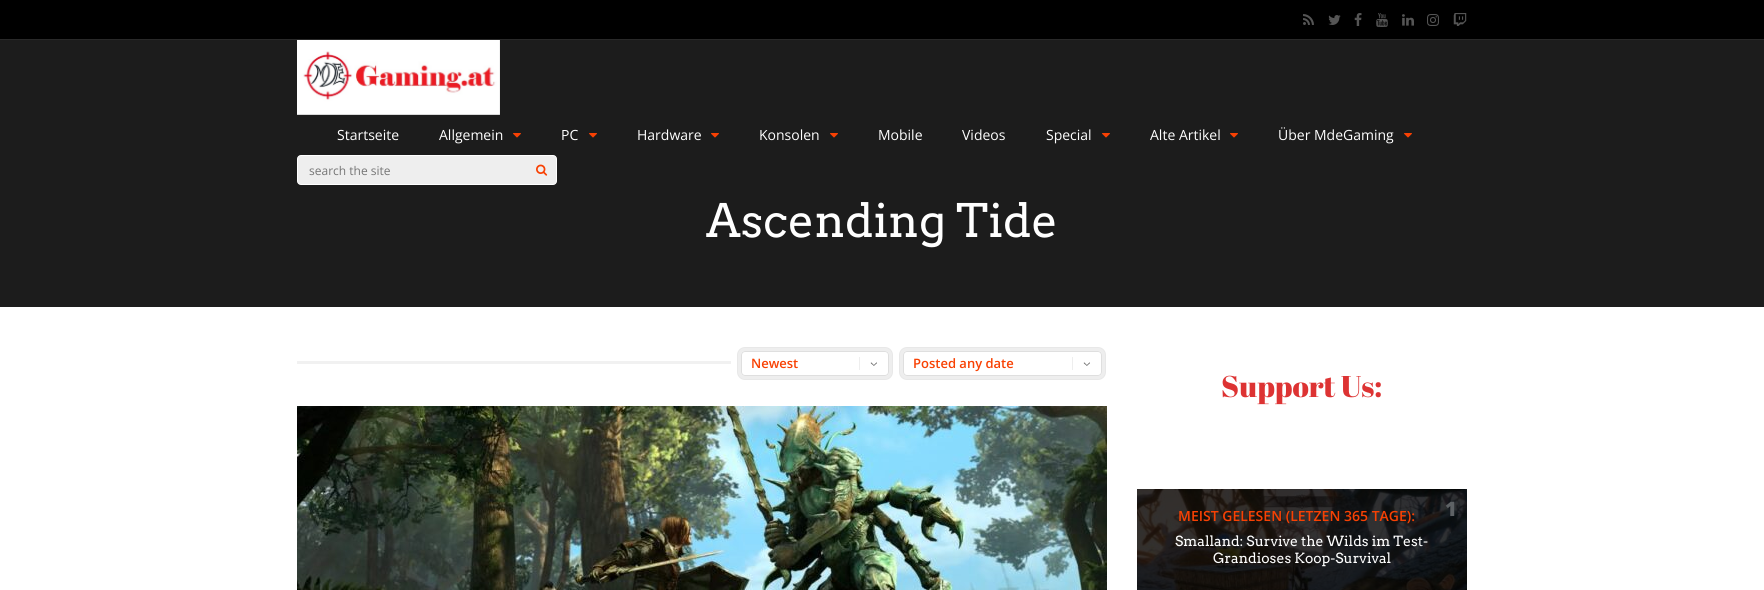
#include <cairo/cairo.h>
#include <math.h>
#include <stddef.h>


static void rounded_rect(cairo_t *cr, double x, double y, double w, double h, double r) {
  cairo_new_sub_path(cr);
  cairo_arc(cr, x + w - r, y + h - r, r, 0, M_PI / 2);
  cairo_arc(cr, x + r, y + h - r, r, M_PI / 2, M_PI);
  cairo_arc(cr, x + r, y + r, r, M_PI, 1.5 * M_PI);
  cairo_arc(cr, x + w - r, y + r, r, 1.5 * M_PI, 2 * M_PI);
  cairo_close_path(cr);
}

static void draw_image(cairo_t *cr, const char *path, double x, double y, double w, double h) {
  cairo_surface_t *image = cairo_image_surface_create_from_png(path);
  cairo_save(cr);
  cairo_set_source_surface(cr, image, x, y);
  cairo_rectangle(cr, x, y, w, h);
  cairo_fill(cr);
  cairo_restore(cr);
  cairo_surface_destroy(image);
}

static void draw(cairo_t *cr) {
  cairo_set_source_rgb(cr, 1, 1, 1);
  cairo_paint(cr);
  cairo_set_source_rgb(cr, 0, 0, 0);
  cairo_rectangle(cr, 0, 0, 1764, 39);
  cairo_fill(cr);
  cairo_set_source_rgb(cr, 41 / 255.0, 41 / 255.0, 41 / 255.0);
  cairo_rectangle(cr, 0, 39, 1764, 1);
  cairo_fill(cr);
  draw_image(cr, "images/1.png", 1303, 14, 11, 11);
  draw_image(cr, "images/2.png", 1328, 15, 13, 10);
  draw_image(cr, "images/3.png", 1354, 13, 8, 13);
  draw_image(cr, "images/4.png", 1376, 13, 12, 14);
  draw_image(cr, "images/5.png", 1402, 14, 12, 12);
  draw_image(cr, "images/6.png", 1427, 14, 12, 12);
  draw_image(cr, "images/7.png", 1453, 13, 14, 13);
  cairo_set_source_rgb(cr, 28 / 255.0, 28 / 255.0, 28 / 255.0);
  cairo_rectangle(cr, 0, 40, 1764, 267);
  cairo_fill(cr);
  draw_image(cr, "images/8.png", 297, 40, 203, 75);
  draw_image(cr, "images/9.png", 513, 133, 8, 5);
  draw_image(cr, "images/9.png", 589, 133, 8, 5);
  draw_image(cr, "images/9.png", 711, 133, 8, 5);
  draw_image(cr, "images/9.png", 830, 133, 8, 5);
  draw_image(cr, "images/9.png", 1102, 133, 8, 5);
  draw_image(cr, "images/9.png", 1230, 133, 8, 5);
  draw_image(cr, "images/9.png", 1404, 133, 8, 5);
  cairo_set_source_rgb(cr, 238 / 255.0, 238 / 255.0, 238 / 255.0);
  rounded_rect(cr, 297.5, 155.5, 259, 29, 3.5);
  cairo_fill_preserve(cr);
  cairo_set_source_rgb(cr, 1, 1, 1);
  cairo_set_line_width(cr, 1);
  cairo_stroke(cr);
  draw_image(cr, "images/10.png", 536, 164, 12, 12);
  cairo_set_source_rgb(cr, 241 / 255.0, 241 / 255.0, 241 / 255.0);
  cairo_rectangle(cr, 297, 361, 434, 3);
  cairo_fill(cr);
  rounded_rect(cr, 739, 349, 152, 29, 6);
  cairo_set_source_rgb(cr, 232 / 255.0, 232 / 255.0, 232 / 255.0);
  cairo_set_line_width(cr, 4);
  cairo_stroke(cr);
  rounded_rect(cr, 739.5, 349.5, 151, 28, 5.5);
  cairo_set_source_rgba(cr, 1, 1, 1, 0.25);
  cairo_set_line_width(cr, 3);
  cairo_stroke(cr);
  cairo_set_source_rgb(cr, 1, 1, 1);
  rounded_rect(cr, 741, 351, 148, 25, 4);
  cairo_fill(cr);
  draw_image(cr, "images/11.png", 859, 357, 18, 13);
  rounded_rect(cr, 741.5, 351.5, 147, 24, 3.5);
  cairo_set_source_rgb(cr, 223 / 255.0, 223 / 255.0, 223 / 255.0);
  cairo_set_line_width(cr, 1);
  cairo_stroke(cr);
  rounded_rect(cr, 901, 349, 203, 29, 6);
  cairo_set_source_rgb(cr, 232 / 255.0, 232 / 255.0, 232 / 255.0);
  cairo_set_line_width(cr, 4);
  cairo_stroke(cr);
  rounded_rect(cr, 901.5, 349.5, 202, 28, 5.5);
  cairo_set_source_rgba(cr, 1, 1, 1, 0.25);
  cairo_set_line_width(cr, 3);
  cairo_stroke(cr);
  cairo_set_source_rgb(cr, 1, 1, 1);
  rounded_rect(cr, 903, 351, 199, 25, 4);
  cairo_fill(cr);
  draw_image(cr, "images/11.png", 1072, 357, 18, 13);
  rounded_rect(cr, 903.5, 351.5, 198, 24, 3.5);
  cairo_set_source_rgb(cr, 223 / 255.0, 223 / 255.0, 223 / 255.0);
  cairo_set_line_width(cr, 1);
  cairo_stroke(cr);
  draw_image(cr, "images/12.png", 297, 406, 810, 184);
  draw_image(cr, "images/13.png", 1137, 489, 330, 101);
  cairo_select_font_face(cr, "Open Sans", CAIRO_FONT_SLANT_NORMAL, CAIRO_FONT_WEIGHT_NORMAL);
  cairo_set_font_size(cr, 14);
  cairo_set_source_rgb(cr, 1, 1, 1);
  cairo_move_to(cr, 337, 140);
  cairo_show_text(cr, "Startseite");
  cairo_move_to(cr, 439, 140);
  cairo_show_text(cr, "Allgemein");
  cairo_move_to(cr, 561, 140);
  cairo_show_text(cr, "PC");
  cairo_move_to(cr, 637, 140);
  cairo_show_text(cr, "Hardware");
  cairo_move_to(cr, 759, 140);
  cairo_show_text(cr, "Konsolen");
  cairo_move_to(cr, 878, 140);
  cairo_show_text(cr, "Mobile");
  cairo_move_to(cr, 962, 140);
  cairo_show_text(cr, "Videos");
  cairo_move_to(cr, 1046, 140);
  cairo_show_text(cr, "Special");
  cairo_move_to(cr, 1150, 140);
  cairo_show_text(cr, "Alte Artikel");
  cairo_move_to(cr, 1278, 140);
  cairo_show_text(cr, "Über MdeGaming");
  cairo_set_font_size(cr, 12);
  cairo_set_source_rgb(cr, 117 / 255.0, 117 / 255.0, 117 / 255.0);
  cairo_move_to(cr, 309, 175);
  cairo_show_text(cr, "search the site");
  cairo_select_font_face(cr, "Arvo", CAIRO_FONT_SLANT_NORMAL, CAIRO_FONT_WEIGHT_NORMAL);
  cairo_set_font_size(cr, 46);
  cairo_set_source_rgb(cr, 1, 1, 1);
  cairo_move_to(cr, 706, 237);
  cairo_show_text(cr, "Ascending Tide");
  cairo_select_font_face(cr, "Open Sans SemiBold", CAIRO_FONT_SLANT_NORMAL, CAIRO_FONT_WEIGHT_NORMAL);
  cairo_set_font_size(cr, 13);
  cairo_set_source_rgb(cr, 248 / 255.0, 65 / 255.0, 3 / 255.0);
  cairo_move_to(cr, 751, 368);
  cairo_show_text(cr, "Newest");
  cairo_move_to(cr, 913, 368);
  cairo_show_text(cr, "Posted any date");
  cairo_select_font_face(cr, "Abril Fatface", CAIRO_FONT_SLANT_NORMAL, CAIRO_FONT_WEIGHT_NORMAL);
  cairo_set_font_size(cr, 30);
  cairo_set_source_rgb(cr, 221 / 255.0, 51 / 255.0, 51 / 255.0);
  cairo_move_to(cr, 1221, 397);
  cairo_show_text(cr, "Support Us:");
  cairo_select_font_face(cr, "Open Sans SemiBold", CAIRO_FONT_SLANT_NORMAL, CAIRO_FONT_WEIGHT_NORMAL);
  cairo_set_font_size(cr, 14);
  cairo_set_source_rgb(cr, 248 / 255.0, 65 / 255.0, 3 / 255.0);
  cairo_move_to(cr, 1178, 521);
  cairo_show_text(cr, "MEIST GELESEN (LETZEN 365 TAGE):");
  cairo_select_font_face(cr, "Open Sans ExtraBold", CAIRO_FONT_SLANT_NORMAL, CAIRO_FONT_WEIGHT_NORMAL);
  cairo_set_font_size(cr, 20);
  cairo_set_source_rgb(cr, 94 / 255.0, 98 / 255.0, 101 / 255.0);
  cairo_move_to(cr, 1445, 516);
  cairo_show_text(cr, "1");
  cairo_select_font_face(cr, "Arvo", CAIRO_FONT_SLANT_NORMAL, CAIRO_FONT_WEIGHT_NORMAL);
  cairo_set_font_size(cr, 14);
  cairo_set_source_rgb(cr, 1, 1, 1);
  cairo_move_to(cr, 1175, 546);
  cairo_show_text(cr, "Smalland: Survive the Wilds im Test-");
  cairo_move_to(cr, 1213, 563);
  cairo_show_text(cr, "Grandioses Koop-Survival");
}

int main(void) {
  cairo_surface_t *surface = cairo_image_surface_create(CAIRO_FORMAT_RGB24, 1764, 590);
  cairo_t *cr = cairo_create(surface);
  cairo_font_options_t *options = cairo_font_options_create();
  cairo_font_options_set_hint_metrics(options, CAIRO_HINT_METRICS_OFF);
  cairo_font_options_set_hint_style(options, CAIRO_HINT_STYLE_NONE);
  cairo_set_font_options(cr, options);
  cairo_set_miter_limit(cr, 4);
  draw(cr);
  cairo_surface_write_to_png(surface, "out.png");
  cairo_font_options_destroy(options);
  cairo_destroy(cr);
  cairo_surface_destroy(surface);
  return 0;
}
